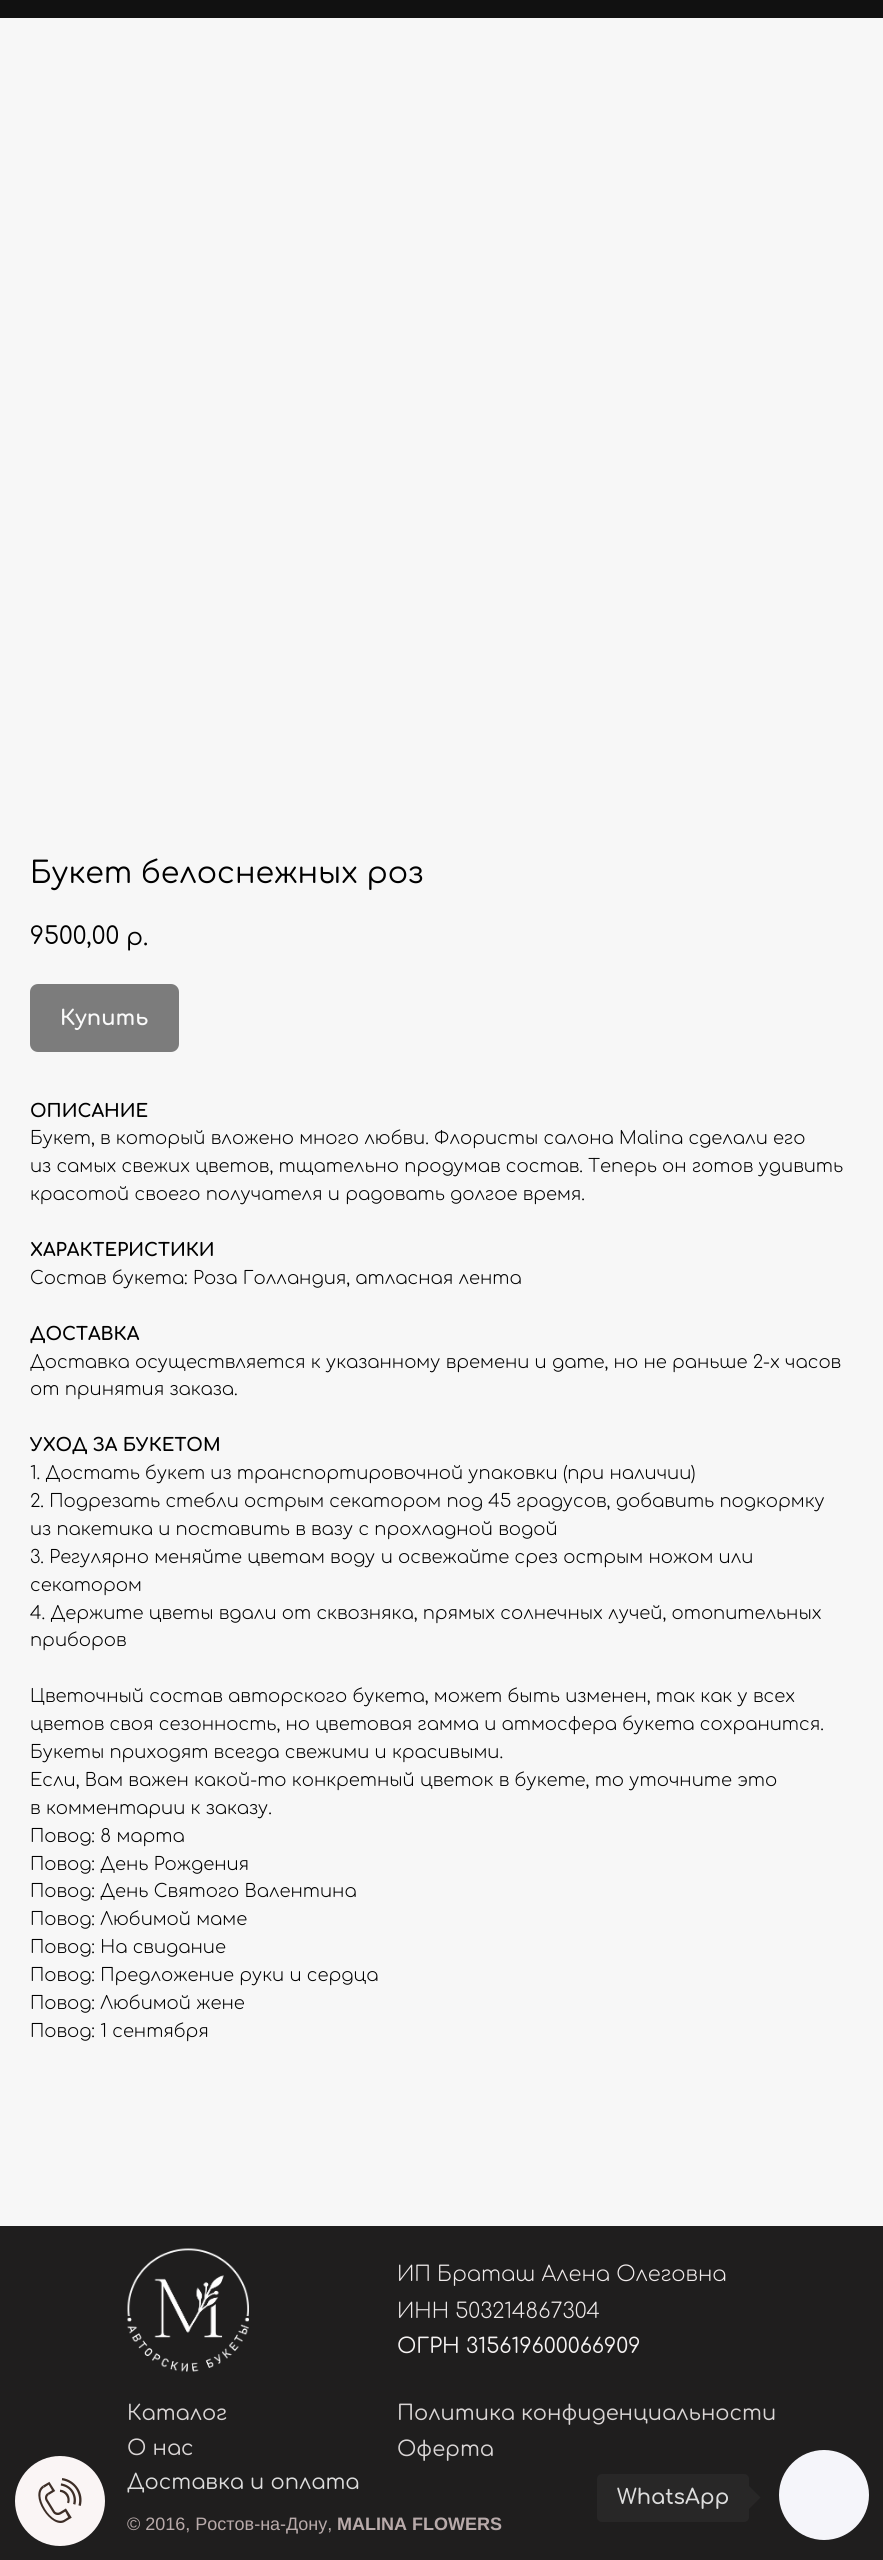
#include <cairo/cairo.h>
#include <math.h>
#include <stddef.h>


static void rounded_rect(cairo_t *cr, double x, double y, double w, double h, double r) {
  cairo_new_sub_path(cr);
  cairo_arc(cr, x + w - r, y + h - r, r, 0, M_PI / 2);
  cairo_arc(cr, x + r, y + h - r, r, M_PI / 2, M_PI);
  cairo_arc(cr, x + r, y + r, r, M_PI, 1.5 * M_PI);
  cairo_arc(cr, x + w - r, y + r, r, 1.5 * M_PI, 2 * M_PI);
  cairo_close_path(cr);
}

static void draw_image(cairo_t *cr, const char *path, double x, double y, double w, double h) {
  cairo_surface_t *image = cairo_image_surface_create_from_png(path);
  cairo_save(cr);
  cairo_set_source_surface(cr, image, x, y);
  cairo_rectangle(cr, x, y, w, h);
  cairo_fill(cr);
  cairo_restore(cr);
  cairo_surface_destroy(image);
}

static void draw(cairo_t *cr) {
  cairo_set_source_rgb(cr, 247 / 255.0, 247 / 255.0, 247 / 255.0);
  cairo_paint(cr);
  cairo_set_source_rgb(cr, 124 / 255.0, 124 / 255.0, 124 / 255.0);
  rounded_rect(cr, 30, 984, 149, 68, 8);
  cairo_fill(cr);
  cairo_set_source_rgb(cr, 31 / 255.0, 30 / 255.0, 30 / 255.0);
  cairo_rectangle(cr, 0, 2226, 883, 334);
  cairo_fill(cr);
  draw_image(cr, "images/1.png", 127, 2248, 122, 124);
  cairo_set_source_rgb(cr, 17 / 255.0, 17 / 255.0, 17 / 255.0);
  cairo_rectangle(cr, 0, 0, 883, 18);
  cairo_fill(cr);
  cairo_set_source_rgb(cr, 250 / 255.0, 245 / 255.0, 245 / 255.0);
  cairo_arc(cr, 60, 2501, 45, 0, 2 * M_PI);
  cairo_fill(cr);
  draw_image(cr, "images/2.png", 38, 2478, 44, 45);
  cairo_set_source_rgb(cr, 40 / 255.0, 39 / 255.0, 39 / 255.0);
  rounded_rect(cr, 597, 2474, 152, 48, 5);
  cairo_fill(cr);
  cairo_new_path(cr);
  cairo_move_to(cr, 748.5, 2509.5);
  cairo_line_to(cr, 748.5, 2485.5);
  cairo_line_to(cr, 760.5, 2497.5);
  cairo_close_path(cr);
  cairo_fill(cr);
  cairo_set_source_rgb(cr, 245 / 255.0, 245 / 255.0, 250 / 255.0);
  cairo_arc(cr, 824, 2495, 45, 0, 2 * M_PI);
  cairo_fill(cr);
  cairo_select_font_face(cr, "Comfortaa", CAIRO_FONT_SLANT_NORMAL, CAIRO_FONT_WEIGHT_NORMAL);
  cairo_set_font_size(cr, 30);
  cairo_set_source_rgb(cr, 0, 0, 0);
  cairo_move_to(cr, 30, 883);
  cairo_show_text(cr, "Букет белоснежных роз");
  cairo_set_font_size(cr, 24);
  cairo_move_to(cr, 30, 944);
  cairo_show_text(cr, "9500,00");
  cairo_move_to(cr, 126, 945);
  cairo_show_text(cr, "р.");
  cairo_select_font_face(cr, "Comfortaa", CAIRO_FONT_SLANT_NORMAL, CAIRO_FONT_WEIGHT_BOLD);
  cairo_set_font_size(cr, 21);
  cairo_set_source_rgb(cr, 250 / 255.0, 250 / 255.0, 250 / 255.0);
  cairo_move_to(cr, 60, 1025);
  cairo_show_text(cr, "Купить");
  cairo_set_font_size(cr, 18);
  cairo_set_source_rgb(cr, 0, 0, 0);
  cairo_move_to(cr, 30, 1117);
  cairo_show_text(cr, "ОПИСАНИЕ");
  cairo_select_font_face(cr, "Comfortaa Light", CAIRO_FONT_SLANT_NORMAL, CAIRO_FONT_WEIGHT_NORMAL);
  cairo_move_to(cr, 30, 1144);
  cairo_show_text(cr, "Букет, в который вложено много любви. Флористы салона Malina сделали его");
  cairo_move_to(cr, 30, 1172);
  cairo_show_text(cr, "из самых свежих цветов, тщательно продумав состав. Теперь он готов удивить");
  cairo_move_to(cr, 30, 1200);
  cairo_show_text(cr, "красотой своего получателя и радовать долгое время.");
  cairo_select_font_face(cr, "Comfortaa", CAIRO_FONT_SLANT_NORMAL, CAIRO_FONT_WEIGHT_BOLD);
  cairo_move_to(cr, 30, 1256);
  cairo_show_text(cr, "ХАРАКТЕРИСТИКИ");
  cairo_select_font_face(cr, "Comfortaa Light", CAIRO_FONT_SLANT_NORMAL, CAIRO_FONT_WEIGHT_NORMAL);
  cairo_move_to(cr, 30, 1284);
  cairo_show_text(cr, "Состав букета: Роза Голландия, атласная лента");
  cairo_select_font_face(cr, "Comfortaa", CAIRO_FONT_SLANT_NORMAL, CAIRO_FONT_WEIGHT_BOLD);
  cairo_move_to(cr, 30, 1340);
  cairo_show_text(cr, "ДОСТАВКА");
  cairo_select_font_face(cr, "Comfortaa Light", CAIRO_FONT_SLANT_NORMAL, CAIRO_FONT_WEIGHT_NORMAL);
  cairo_move_to(cr, 30, 1368);
  cairo_show_text(cr, "Доставка осуществляется к указанному времени и дате, но не раньше 2-х часов");
  cairo_move_to(cr, 30, 1395);
  cairo_show_text(cr, "от принятия заказа.");
  cairo_select_font_face(cr, "Comfortaa", CAIRO_FONT_SLANT_NORMAL, CAIRO_FONT_WEIGHT_BOLD);
  cairo_move_to(cr, 30, 1451);
  cairo_show_text(cr, "УХОД ЗА БУКЕТОМ");
  cairo_select_font_face(cr, "Comfortaa Light", CAIRO_FONT_SLANT_NORMAL, CAIRO_FONT_WEIGHT_NORMAL);
  cairo_move_to(cr, 30, 1479);
  cairo_show_text(cr, "1. Достать букет из транспортировочной упаковки (при наличии)");
  cairo_move_to(cr, 30, 1507);
  cairo_show_text(cr, "2. Подрезать стебли острым секатором под 45 градусов, добавить подкормку");
  cairo_move_to(cr, 30, 1535);
  cairo_show_text(cr, "из пакетика и поставить в вазу с прохладной водой");
  cairo_move_to(cr, 30, 1563);
  cairo_show_text(cr, "3. Регулярно меняйте цветам воду и освежайте срез острым ножом или");
  cairo_move_to(cr, 30, 1591);
  cairo_show_text(cr, "секатором");
  cairo_move_to(cr, 30, 1619);
  cairo_show_text(cr, "4. Держите цветы вдали от сквозняка, прямых солнечных лучей, отопительных");
  cairo_move_to(cr, 30, 1646);
  cairo_show_text(cr, "приборов");
  cairo_move_to(cr, 30, 1702);
  cairo_show_text(cr, "Цветочный состав авторского букета, может быть изменен, так как у всех");
  cairo_move_to(cr, 30, 1730);
  cairo_show_text(cr, "цветов своя сезонность, но цветовая гамма и атмосфера букета сохранится.");
  cairo_move_to(cr, 30, 1758);
  cairo_show_text(cr, "Букеты приходят всегда свежими и красивыми.");
  cairo_move_to(cr, 30, 1786);
  cairo_show_text(cr, "Если, Вам важен какой-то конкретный цветок в букете, то уточните это");
  cairo_move_to(cr, 30, 1814);
  cairo_show_text(cr, "в комментарии к заказу.");
  cairo_move_to(cr, 30, 1842);
  cairo_show_text(cr, "Повод: 8 марта");
  cairo_move_to(cr, 30, 1870);
  cairo_show_text(cr, "Повод: День Рождения");
  cairo_move_to(cr, 30, 1897);
  cairo_show_text(cr, "Повод: День Святого Валентина");
  cairo_move_to(cr, 30, 1925);
  cairo_show_text(cr, "Повод: Любимой маме");
  cairo_move_to(cr, 30, 1953);
  cairo_show_text(cr, "Повод: На свидание");
  cairo_move_to(cr, 30, 1981);
  cairo_show_text(cr, "Повод: Предложение руки и сердца");
  cairo_move_to(cr, 30, 2009);
  cairo_show_text(cr, "Повод: Любимой жене");
  cairo_move_to(cr, 30, 2037);
  cairo_show_text(cr, "Повод: 1 сентября");
  cairo_set_font_size(cr, 21);
  cairo_set_source_rgb(cr, 240 / 255.0, 235 / 255.0, 235 / 255.0);
  cairo_move_to(cr, 397, 2281);
  cairo_show_text(cr, "ИП Браташ Алена Олеговна");
  cairo_move_to(cr, 397, 2318);
  cairo_show_text(cr, "ИНН 503214867304");
  cairo_select_font_face(cr, "Comfortaa", CAIRO_FONT_SLANT_NORMAL, CAIRO_FONT_WEIGHT_NORMAL);
  cairo_set_source_rgb(cr, 245 / 255.0, 242 / 255.0, 242 / 255.0);
  cairo_move_to(cr, 397, 2353);
  cairo_show_text(cr, "ОГРН 315619600066909");
  cairo_set_source_rgb(cr, 217 / 255.0, 213 / 255.0, 213 / 255.0);
  cairo_move_to(cr, 127, 2420);
  cairo_show_text(cr, "Каталог");
  cairo_move_to(cr, 397, 2420);
  cairo_show_text(cr, "Политика конфиденциальности");
  cairo_move_to(cr, 127, 2455);
  cairo_show_text(cr, "О нас");
  cairo_move_to(cr, 397, 2456);
  cairo_show_text(cr, "Оферта");
  cairo_set_source_rgb(cr, 221 / 255.0, 221 / 255.0, 221 / 255.0);
  cairo_move_to(cr, 127, 2489);
  cairo_show_text(cr, "Доставка и оплата");
  cairo_select_font_face(cr, "Liberation Sans", CAIRO_FONT_SLANT_NORMAL, CAIRO_FONT_WEIGHT_NORMAL);
  cairo_set_font_size(cr, 18);
  cairo_set_source_rgb(cr, 184 / 255.0, 170 / 255.0, 170 / 255.0);
  cairo_move_to(cr, 127, 2530);
  cairo_show_text(cr, "© 2016, Ростов-на-Дону,");
  cairo_select_font_face(cr, "Liberation Sans", CAIRO_FONT_SLANT_NORMAL, CAIRO_FONT_WEIGHT_BOLD);
  cairo_move_to(cr, 337, 2530);
  cairo_show_text(cr, "MALINA FLOWERS");
  cairo_select_font_face(cr, "Comfortaa SemiBold", CAIRO_FONT_SLANT_NORMAL, CAIRO_FONT_WEIGHT_NORMAL);
  cairo_set_font_size(cr, 21);
  cairo_set_source_rgb(cr, 221 / 255.0, 221 / 255.0, 221 / 255.0);
  cairo_move_to(cr, 617, 2504);
  cairo_show_text(cr, "WhatsApp");
}

int main(void) {
  cairo_surface_t *surface = cairo_image_surface_create(CAIRO_FORMAT_RGB24, 883, 2560);
  cairo_t *cr = cairo_create(surface);
  cairo_font_options_t *options = cairo_font_options_create();
  cairo_font_options_set_hint_metrics(options, CAIRO_HINT_METRICS_OFF);
  cairo_font_options_set_hint_style(options, CAIRO_HINT_STYLE_NONE);
  cairo_set_font_options(cr, options);
  cairo_set_miter_limit(cr, 4);
  draw(cr);
  cairo_surface_write_to_png(surface, "out.png");
  cairo_font_options_destroy(options);
  cairo_destroy(cr);
  cairo_surface_destroy(surface);
  return 0;
}
